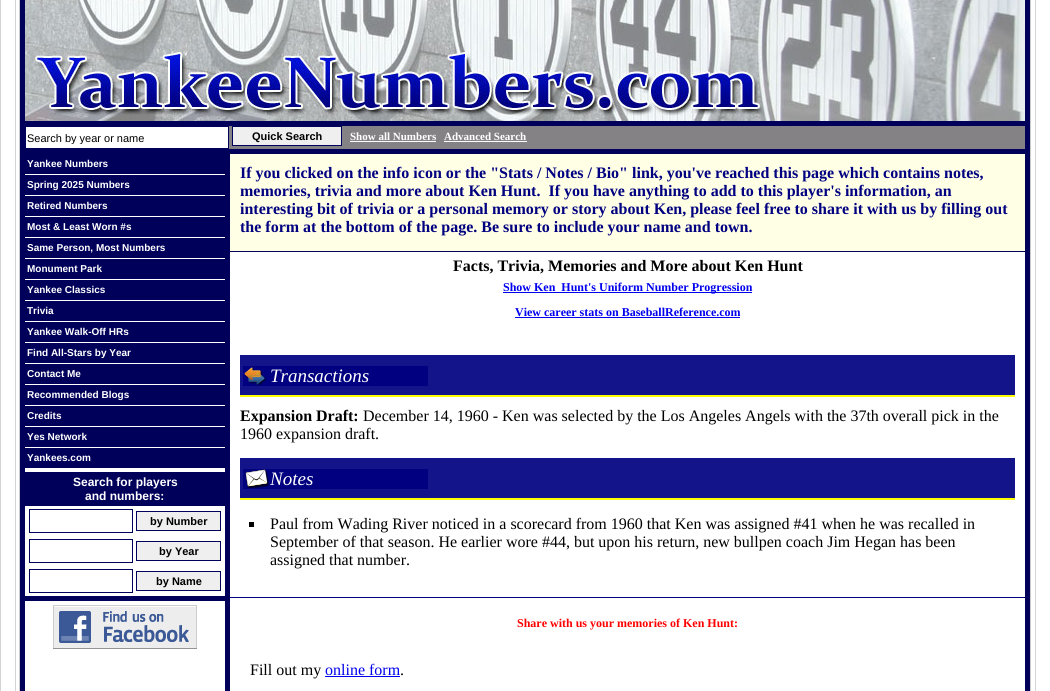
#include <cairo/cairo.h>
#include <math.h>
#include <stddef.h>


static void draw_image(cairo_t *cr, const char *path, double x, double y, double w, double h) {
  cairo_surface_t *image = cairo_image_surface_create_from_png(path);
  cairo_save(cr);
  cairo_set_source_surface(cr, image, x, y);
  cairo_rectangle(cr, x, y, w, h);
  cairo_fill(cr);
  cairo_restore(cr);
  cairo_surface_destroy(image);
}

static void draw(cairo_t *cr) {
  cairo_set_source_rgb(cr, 1, 1, 1);
  cairo_paint(cr);
  draw_image(cr, "images/1.png", 0, 0, 1036, 691);
  cairo_set_source_rgb(cr, 0, 0, 91 / 255.0);
  cairo_rectangle(cr, 19.5, -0.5, 1011, 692);
  cairo_fill_preserve(cr);
  cairo_set_source_rgb(cr, 204 / 255.0, 204 / 255.0, 204 / 255.0);
  cairo_set_line_width(cr, 1);
  cairo_stroke(cr);
  draw_image(cr, "images/2.png", 25, 0, 1000, 121);
  cairo_set_source_rgb(cr, 132 / 255.0, 130 / 255.0, 132 / 255.0);
  cairo_rectangle(cr, 229, 126, 796, 23);
  cairo_fill(cr);
  cairo_set_source_rgb(cr, 1, 1, 1);
  cairo_rectangle(cr, 26, 127, 202, 21);
  cairo_fill(cr);
  cairo_set_source_rgb(cr, 239 / 255.0, 239 / 255.0, 239 / 255.0);
  cairo_rectangle(cr, 232.5, 126.5, 109, 19);
  cairo_fill_preserve(cr);
  cairo_set_source_rgb(cr, 0, 0, 91 / 255.0);
  cairo_stroke(cr);
  cairo_set_source_rgb(cr, 1, 1, 1);
  cairo_rectangle(cr, 350, 141, 86, 1);
  cairo_fill(cr);
  cairo_rectangle(cr, 444, 141, 83, 1);
  cairo_fill(cr);
  cairo_rectangle(cr, 25, 252, 1000, 439);
  cairo_fill(cr);
  cairo_set_source_rgb(cr, 0, 0, 91 / 255.0);
  cairo_rectangle(cr, 25, 252, 200, 216);
  cairo_fill(cr);
  cairo_set_source_rgb(cr, 1, 1, 1);
  cairo_rectangle(cr, 25, 174, 201, 1);
  cairo_fill(cr);
  cairo_rectangle(cr, 25, 195, 201, 1);
  cairo_fill(cr);
  cairo_rectangle(cr, 25, 216, 201, 1);
  cairo_fill(cr);
  cairo_rectangle(cr, 25, 237, 201, 1);
  cairo_fill(cr);
  cairo_rectangle(cr, 25, 258, 201, 1);
  cairo_fill(cr);
  cairo_rectangle(cr, 25, 279, 201, 1);
  cairo_fill(cr);
  cairo_rectangle(cr, 25, 300, 201, 1);
  cairo_fill(cr);
  cairo_rectangle(cr, 25, 321, 201, 1);
  cairo_fill(cr);
  cairo_rectangle(cr, 25, 342, 201, 1);
  cairo_fill(cr);
  cairo_rectangle(cr, 25, 363, 201, 1);
  cairo_fill(cr);
  cairo_rectangle(cr, 25, 384, 201, 1);
  cairo_fill(cr);
  cairo_rectangle(cr, 25, 405, 201, 1);
  cairo_fill(cr);
  cairo_rectangle(cr, 25, 426, 201, 1);
  cairo_fill(cr);
  cairo_rectangle(cr, 25, 447, 201, 1);
  cairo_fill(cr);
  cairo_set_source_rgb(cr, 0, 0, 91 / 255.0);
  cairo_rectangle(cr, 25, 472, 200, 34);
  cairo_fill(cr);
  cairo_rectangle(cr, 29.5, 509.5, 103, 23);
  cairo_stroke(cr);
  cairo_set_source_rgb(cr, 239 / 255.0, 239 / 255.0, 239 / 255.0);
  cairo_rectangle(cr, 136.5, 511.5, 84, 19);
  cairo_fill_preserve(cr);
  cairo_set_source_rgb(cr, 0, 0, 91 / 255.0);
  cairo_stroke(cr);
  cairo_rectangle(cr, 29.5, 539.5, 103, 23);
  cairo_stroke(cr);
  cairo_set_source_rgb(cr, 239 / 255.0, 239 / 255.0, 239 / 255.0);
  cairo_rectangle(cr, 136.5, 541.5, 84, 19);
  cairo_fill_preserve(cr);
  cairo_set_source_rgb(cr, 0, 0, 91 / 255.0);
  cairo_stroke(cr);
  cairo_rectangle(cr, 29.5, 569.5, 103, 23);
  cairo_stroke(cr);
  cairo_set_source_rgb(cr, 239 / 255.0, 239 / 255.0, 239 / 255.0);
  cairo_rectangle(cr, 136.5, 571.5, 84, 19);
  cairo_fill_preserve(cr);
  cairo_set_source_rgb(cr, 0, 0, 91 / 255.0);
  cairo_stroke(cr);
  cairo_rectangle(cr, 25, 596, 200, 5);
  cairo_fill(cr);
  draw_image(cr, "images/3.png", 53, 605, 144, 44);
  cairo_rectangle(cr, 225, 174, 5, 517);
  cairo_fill(cr);
  cairo_set_source_rgb(cr, 1, 1, 230 / 255.0);
  cairo_rectangle(cr, 230, 154, 795, 97);
  cairo_fill(cr);
  cairo_set_source_rgb(cr, 0, 0, 238 / 255.0);
  cairo_rectangle(cr, 503, 292, 249, 1);
  cairo_fill(cr);
  cairo_rectangle(cr, 515, 317, 225, 1);
  cairo_fill(cr);
  cairo_set_source_rgb(cr, 20 / 255.0, 20 / 255.0, 138 / 255.0);
  cairo_rectangle(cr, 240, 355, 775, 40);
  cairo_fill(cr);
  draw_image(cr, "images/4.png", 243, 366, 185, 20);
  cairo_set_source_rgb(cr, 1, 1, 0);
  cairo_rectangle(cr, 240, 395, 775, 2);
  cairo_fill(cr);
  cairo_set_source_rgb(cr, 20 / 255.0, 20 / 255.0, 138 / 255.0);
  cairo_rectangle(cr, 240, 458, 775, 40);
  cairo_fill(cr);
  draw_image(cr, "images/5.png", 243, 469, 185, 20);
  cairo_set_source_rgb(cr, 1, 1, 0);
  cairo_rectangle(cr, 240, 498, 775, 2);
  cairo_fill(cr);
  cairo_set_source_rgb(cr, 0, 0, 0);
  cairo_rectangle(cr, 249, 522, 5, 5);
  cairo_fill(cr);
  cairo_set_source_rgb(cr, 0, 0, 128 / 255.0);
  cairo_rectangle(cr, 230, 597, 795, 1);
  cairo_fill(cr);
  cairo_set_source_rgb(cr, 0, 0, 238 / 255.0);
  cairo_rectangle(cr, 325, 676, 75, 1);
  cairo_fill(cr);
  cairo_save(cr);
  cairo_rectangle(cr, 27, 132, 200, 12);
  cairo_clip(cr);
  cairo_select_font_face(cr, "Liberation Sans", CAIRO_FONT_SLANT_NORMAL, CAIRO_FONT_WEIGHT_NORMAL);
  cairo_set_font_size(cr, 11);
  cairo_set_source_rgb(cr, 0, 0, 0);
  cairo_move_to(cr, 27, 142);
  cairo_show_text(cr, "Search by year or name");
  cairo_restore(cr);
  cairo_select_font_face(cr, "Liberation Sans", CAIRO_FONT_SLANT_NORMAL, CAIRO_FONT_WEIGHT_BOLD);
  cairo_set_font_size(cr, 11);
  cairo_set_source_rgb(cr, 0, 0, 0);
  cairo_move_to(cr, 252, 140);
  cairo_show_text(cr, "Quick Search");
  cairo_select_font_face(cr, "Liberation Serif", CAIRO_FONT_SLANT_NORMAL, CAIRO_FONT_WEIGHT_BOLD);
  cairo_set_source_rgb(cr, 1, 1, 1);
  cairo_move_to(cr, 350, 140);
  cairo_show_text(cr, "Show all Numbers");
  cairo_move_to(cr, 444, 140);
  cairo_show_text(cr, "Advanced Search");
  cairo_select_font_face(cr, "Liberation Sans", CAIRO_FONT_SLANT_NORMAL, CAIRO_FONT_WEIGHT_BOLD);
  cairo_set_font_size(cr, 10);
  cairo_move_to(cr, 27, 167);
  cairo_show_text(cr, "Yankee Numbers");
  cairo_move_to(cr, 27, 188);
  cairo_show_text(cr, "Spring 2025 Numbers");
  cairo_move_to(cr, 27, 209);
  cairo_show_text(cr, "Retired Numbers");
  cairo_move_to(cr, 27, 230);
  cairo_show_text(cr, "Most & Least Worn #s");
  cairo_move_to(cr, 27, 251);
  cairo_show_text(cr, "Same Person, Most Numbers");
  cairo_move_to(cr, 27, 272);
  cairo_show_text(cr, "Monument Park");
  cairo_move_to(cr, 27, 293);
  cairo_show_text(cr, "Yankee Classics");
  cairo_move_to(cr, 27, 314);
  cairo_show_text(cr, "Trivia");
  cairo_move_to(cr, 27, 335);
  cairo_show_text(cr, "Yankee Walk-Off HRs");
  cairo_move_to(cr, 27, 356);
  cairo_show_text(cr, "Find All-Stars by Year");
  cairo_move_to(cr, 27, 377);
  cairo_show_text(cr, "Contact Me");
  cairo_move_to(cr, 27, 398);
  cairo_show_text(cr, "Recommended Blogs");
  cairo_move_to(cr, 27, 419);
  cairo_show_text(cr, "Credits");
  cairo_move_to(cr, 27, 440);
  cairo_show_text(cr, "Yes Network");
  cairo_move_to(cr, 27, 461);
  cairo_show_text(cr, "Yankees.com");
  cairo_set_font_size(cr, 12);
  cairo_move_to(cr, 73, 486);
  cairo_show_text(cr, "Search for players");
  cairo_move_to(cr, 85, 500);
  cairo_show_text(cr, "and numbers:");
  cairo_set_font_size(cr, 11);
  cairo_set_source_rgb(cr, 0, 0, 0);
  cairo_move_to(cr, 150, 525);
  cairo_show_text(cr, "by Number");
  cairo_move_to(cr, 159, 555);
  cairo_show_text(cr, "by Year");
  cairo_move_to(cr, 156, 585);
  cairo_show_text(cr, "by Name");
  cairo_select_font_face(cr, "Liberation Serif", CAIRO_FONT_SLANT_NORMAL, CAIRO_FONT_WEIGHT_BOLD);
  cairo_set_font_size(cr, 16);
  cairo_set_source_rgb(cr, 0, 0, 128 / 255.0);
  cairo_move_to(cr, 240, 178);
  cairo_show_text(cr, "If you clicked on the info icon or the \"Stats / Notes / Bio\" link, you've reached this page which contains notes,");
  cairo_move_to(cr, 240, 196);
  cairo_show_text(cr, "memories, trivia and more about Ken Hunt.  If you have anything to add to this player's information, an");
  cairo_move_to(cr, 240, 214);
  cairo_show_text(cr, "interesting bit of trivia or a personal memory or story about Ken, please feel free to share it with us by filling out");
  cairo_move_to(cr, 240, 232);
  cairo_show_text(cr, "the form at the bottom of the page. Be sure to include your name and town.");
  cairo_set_source_rgb(cr, 0, 0, 0);
  cairo_move_to(cr, 453, 271);
  cairo_show_text(cr, "Facts, Trivia, Memories and More about Ken Hunt");
  cairo_set_font_size(cr, 12);
  cairo_set_source_rgb(cr, 0, 0, 238 / 255.0);
  cairo_move_to(cr, 503, 291);
  cairo_show_text(cr, "Show Ken  Hunt's Uniform Number Progression");
  cairo_move_to(cr, 515, 316);
  cairo_show_text(cr, "View career stats on BaseballReference.com");
  cairo_select_font_face(cr, "Liberation Serif", CAIRO_FONT_SLANT_ITALIC, CAIRO_FONT_WEIGHT_NORMAL);
  cairo_set_font_size(cr, 19);
  cairo_set_source_rgb(cr, 1, 1, 1);
  cairo_move_to(cr, 270, 382);
  cairo_show_text(cr, "Transactions");
  cairo_select_font_face(cr, "Liberation Serif", CAIRO_FONT_SLANT_NORMAL, CAIRO_FONT_WEIGHT_BOLD);
  cairo_set_font_size(cr, 16);
  cairo_set_source_rgb(cr, 0, 0, 0);
  cairo_move_to(cr, 240, 421);
  cairo_show_text(cr, "Expansion Draft:");
  cairo_select_font_face(cr, "Liberation Serif", CAIRO_FONT_SLANT_NORMAL, CAIRO_FONT_WEIGHT_NORMAL);
  cairo_move_to(cr, 363, 421);
  cairo_show_text(cr, "December 14, 1960 - Ken was selected by the Los Angeles Angels with the 37th overall pick in the");
  cairo_move_to(cr, 240, 439);
  cairo_show_text(cr, "1960 expansion draft.");
  cairo_select_font_face(cr, "Liberation Serif", CAIRO_FONT_SLANT_ITALIC, CAIRO_FONT_WEIGHT_NORMAL);
  cairo_set_font_size(cr, 19);
  cairo_set_source_rgb(cr, 1, 1, 1);
  cairo_move_to(cr, 270, 485);
  cairo_show_text(cr, "Notes");
  cairo_select_font_face(cr, "Liberation Serif", CAIRO_FONT_SLANT_NORMAL, CAIRO_FONT_WEIGHT_NORMAL);
  cairo_set_font_size(cr, 16);
  cairo_set_source_rgb(cr, 0, 0, 0);
  cairo_move_to(cr, 270, 529);
  cairo_show_text(cr, "Paul from Wading River noticed in a scorecard from 1960 that Ken was assigned #41 when he was recalled in");
  cairo_move_to(cr, 270, 547);
  cairo_show_text(cr, "September of that season. He earlier wore #44, but upon his return, new bullpen coach Jim Hegan has been");
  cairo_move_to(cr, 270, 565);
  cairo_show_text(cr, "assigned that number.");
  cairo_select_font_face(cr, "Liberation Serif", CAIRO_FONT_SLANT_NORMAL, CAIRO_FONT_WEIGHT_BOLD);
  cairo_set_font_size(cr, 12);
  cairo_set_source_rgb(cr, 1, 0, 0);
  cairo_move_to(cr, 517, 627);
  cairo_show_text(cr, "Share with us your memories of Ken Hunt:");
  cairo_select_font_face(cr, "Liberation Serif", CAIRO_FONT_SLANT_NORMAL, CAIRO_FONT_WEIGHT_NORMAL);
  cairo_set_font_size(cr, 16);
  cairo_set_source_rgb(cr, 0, 0, 0);
  cairo_move_to(cr, 250, 675);
  cairo_show_text(cr, "Fill out my");
  cairo_set_source_rgb(cr, 0, 0, 238 / 255.0);
  cairo_move_to(cr, 325, 675);
  cairo_show_text(cr, "online form");
  cairo_set_source_rgb(cr, 0, 0, 0);
  cairo_move_to(cr, 400, 675);
  cairo_show_text(cr, ".");
}

int main(void) {
  cairo_surface_t *surface = cairo_image_surface_create(CAIRO_FORMAT_RGB24, 1050, 691);
  cairo_t *cr = cairo_create(surface);
  cairo_font_options_t *options = cairo_font_options_create();
  cairo_font_options_set_hint_metrics(options, CAIRO_HINT_METRICS_OFF);
  cairo_font_options_set_hint_style(options, CAIRO_HINT_STYLE_NONE);
  cairo_set_font_options(cr, options);
  cairo_set_miter_limit(cr, 4);
  draw(cr);
  cairo_surface_write_to_png(surface, "out.png");
  cairo_font_options_destroy(options);
  cairo_destroy(cr);
  cairo_surface_destroy(surface);
  return 0;
}
